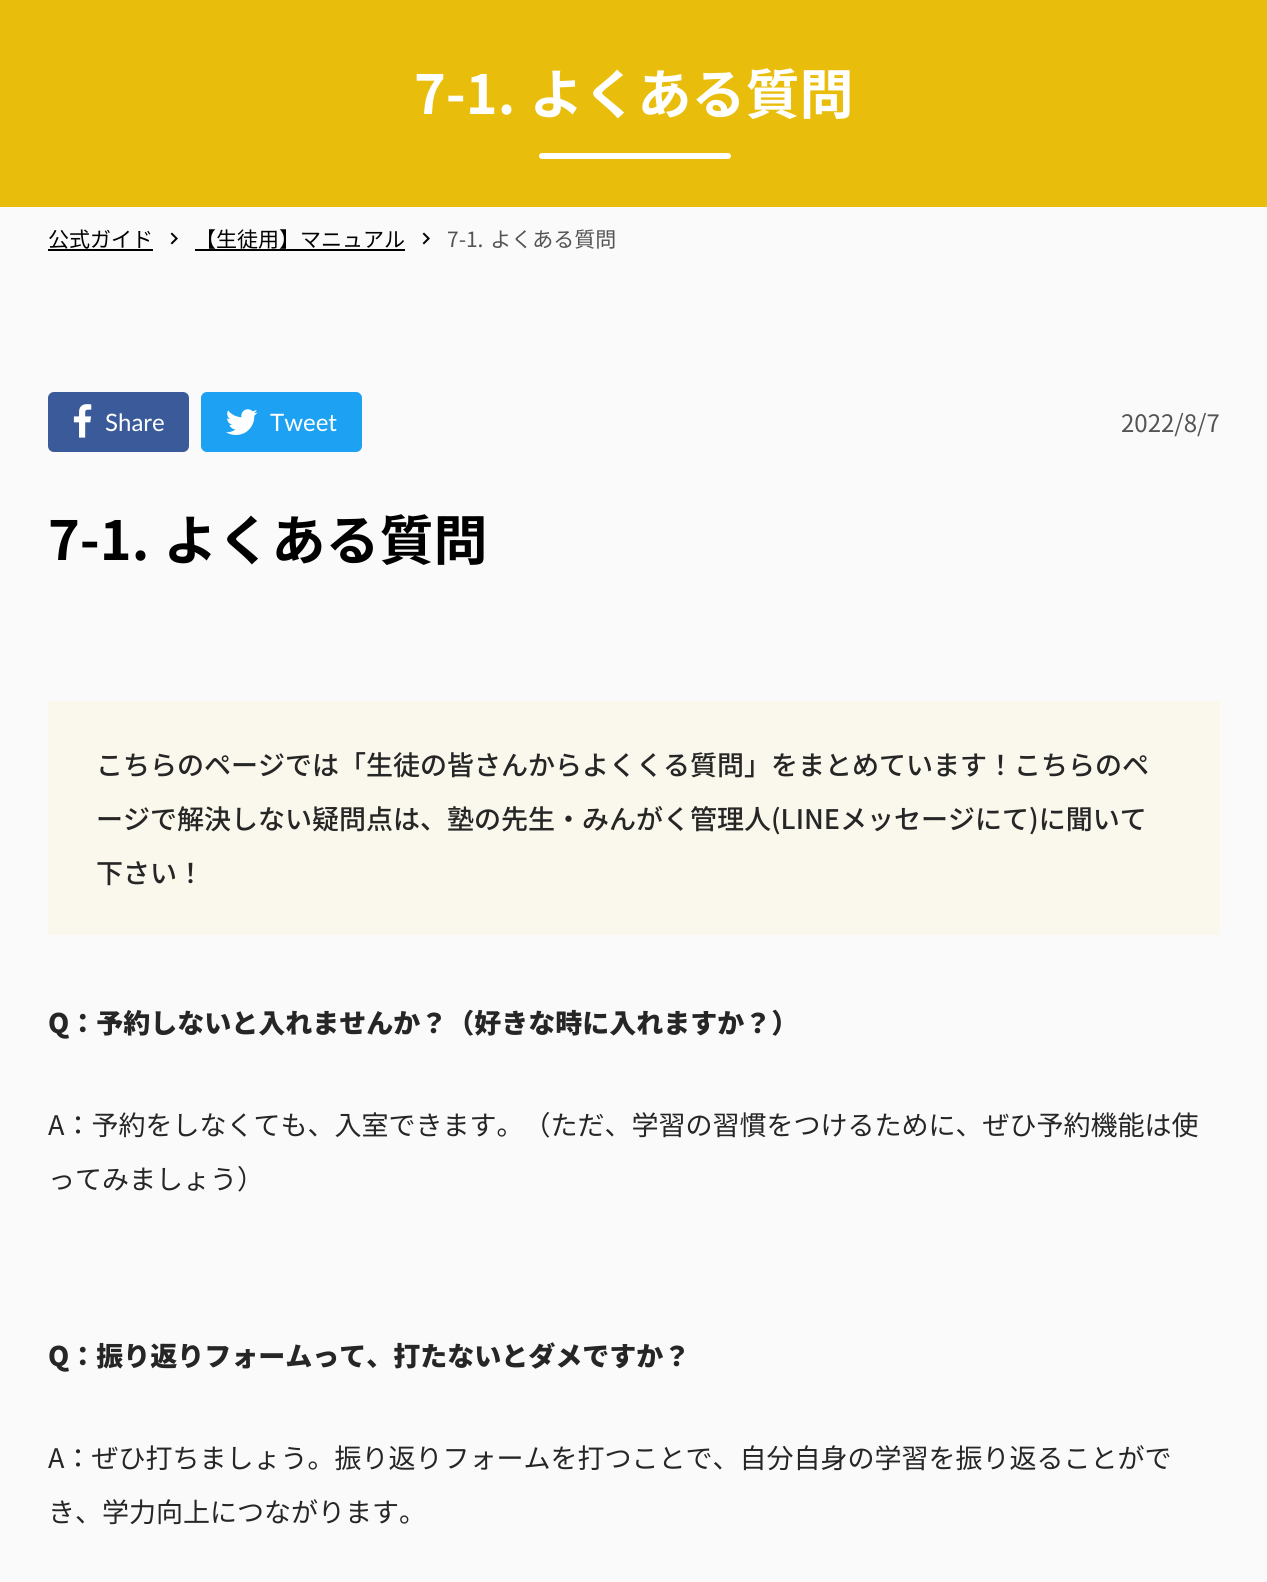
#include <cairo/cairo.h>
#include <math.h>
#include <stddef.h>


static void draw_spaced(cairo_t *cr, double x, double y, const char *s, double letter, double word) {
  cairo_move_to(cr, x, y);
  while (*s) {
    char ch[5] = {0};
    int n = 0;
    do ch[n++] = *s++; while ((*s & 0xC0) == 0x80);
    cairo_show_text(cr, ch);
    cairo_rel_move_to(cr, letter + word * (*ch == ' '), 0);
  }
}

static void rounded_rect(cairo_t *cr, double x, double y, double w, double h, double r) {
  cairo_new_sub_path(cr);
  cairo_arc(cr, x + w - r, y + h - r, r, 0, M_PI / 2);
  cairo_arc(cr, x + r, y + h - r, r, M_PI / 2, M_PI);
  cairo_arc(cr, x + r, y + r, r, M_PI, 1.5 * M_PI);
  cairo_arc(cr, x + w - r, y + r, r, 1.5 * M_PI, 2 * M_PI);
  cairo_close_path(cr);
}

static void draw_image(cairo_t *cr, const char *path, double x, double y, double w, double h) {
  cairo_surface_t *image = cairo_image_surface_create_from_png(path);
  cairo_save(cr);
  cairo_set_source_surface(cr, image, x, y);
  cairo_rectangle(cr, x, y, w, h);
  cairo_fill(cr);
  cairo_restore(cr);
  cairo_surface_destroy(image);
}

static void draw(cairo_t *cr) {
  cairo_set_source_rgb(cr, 250 / 255.0, 250 / 255.0, 250 / 255.0);
  cairo_paint(cr);
  cairo_set_source_rgb(cr, 233 / 255.0, 189 / 255.0, 11 / 255.0);
  cairo_rectangle(cr, 0, 0, 1267, 207);
  cairo_fill(cr);
  cairo_set_source_rgb(cr, 1, 1, 1);
  rounded_rect(cr, 539, 153, 192, 6, 3);
  cairo_fill(cr);
  cairo_set_source_rgb(cr, 0, 0, 0);
  cairo_rectangle(cr, 48, 249, 105, 2);
  cairo_fill(cr);
  draw_image(cr, "images/1.png", 170, 232, 8, 13);
  cairo_rectangle(cr, 195, 249, 210, 2);
  cairo_fill(cr);
  draw_image(cr, "images/1.png", 422, 232, 8, 13);
  cairo_set_source_rgb(cr, 59 / 255.0, 90 / 255.0, 153 / 255.0);
  rounded_rect(cr, 48, 392, 141, 60, 6);
  cairo_fill(cr);
  draw_image(cr, "images/2.png", 73, 404, 19, 34);
  cairo_set_source_rgb(cr, 29 / 255.0, 161 / 255.0, 243 / 255.0);
  rounded_rect(cr, 201, 392, 161, 60, 6);
  cairo_fill(cr);
  draw_image(cr, "images/3.png", 226, 409, 32, 26);
  cairo_set_source_rgb(cr, 250 / 255.0, 247 / 255.0, 236 / 255.0);
  cairo_rectangle(cr, 48, 701, 1172, 234);
  cairo_fill(cr);
  cairo_select_font_face(cr, "Noto Sans JP", CAIRO_FONT_SLANT_NORMAL, CAIRO_FONT_WEIGHT_BOLD);
  cairo_set_font_size(cr, 54);
  cairo_set_source_rgb(cr, 1, 1, 1);
  draw_spaced(cr, 414, 114, "7-1. よくある質問", 0, 2);
  cairo_select_font_face(cr, "Noto Sans JP", CAIRO_FONT_SLANT_NORMAL, CAIRO_FONT_WEIGHT_NORMAL);
  cairo_set_font_size(cr, 21);
  cairo_set_source_rgb(cr, 0, 0, 0);
  cairo_move_to(cr, 48, 247);
  cairo_show_text(cr, "公式ガイド");
  cairo_move_to(cr, 195, 247);
  cairo_show_text(cr, "【生徒用】マニュアル");
  cairo_set_source_rgb(cr, 84 / 255.0, 84 / 255.0, 84 / 255.0);
  draw_spaced(cr, 447, 247, "7-1. よくある質問", 0, 2);
  cairo_select_font_face(cr, "Lato", CAIRO_FONT_SLANT_NORMAL, CAIRO_FONT_WEIGHT_NORMAL);
  cairo_set_font_size(cr, 24);
  cairo_set_source_rgb(cr, 1, 1, 1);
  cairo_move_to(cr, 105, 431);
  cairo_show_text(cr, "Share");
  cairo_move_to(cr, 270, 431);
  cairo_show_text(cr, "Tweet");
  cairo_select_font_face(cr, "Noto Sans JP", CAIRO_FONT_SLANT_NORMAL, CAIRO_FONT_WEIGHT_NORMAL);
  cairo_set_source_rgb(cr, 84 / 255.0, 84 / 255.0, 84 / 255.0);
  cairo_move_to(cr, 1121, 432);
  cairo_show_text(cr, "2022/8/7");
  cairo_select_font_face(cr, "Noto Sans JP", CAIRO_FONT_SLANT_NORMAL, CAIRO_FONT_WEIGHT_BOLD);
  cairo_set_font_size(cr, 54);
  cairo_set_source_rgb(cr, 0, 0, 0);
  draw_spaced(cr, 48, 560, "7-1. よくある質問", 0, 2);
  cairo_select_font_face(cr, "Noto Sans JP Medium", CAIRO_FONT_SLANT_NORMAL, CAIRO_FONT_WEIGHT_NORMAL);
  cairo_set_font_size(cr, 27);
  cairo_set_source_rgb(cr, 38 / 255.0, 38 / 255.0, 38 / 255.0);
  cairo_move_to(cr, 96, 775);
  cairo_show_text(cr, "こちらのページでは「生徒の皆さんからよくくる質問」をまとめています！こちらのペ");
  cairo_move_to(cr, 96, 829);
  cairo_show_text(cr, "ージで解決しない疑問点は、塾の先生・みんがく管理人(LINEメッセージにて)に聞いて");
  cairo_move_to(cr, 96, 883);
  cairo_show_text(cr, "下さい！");
  cairo_select_font_face(cr, "Noto Sans JP Black", CAIRO_FONT_SLANT_NORMAL, CAIRO_FONT_WEIGHT_NORMAL);
  cairo_move_to(cr, 48, 1033);
  cairo_show_text(cr, "Q：予約しないと入れませんか？（好きな時に入れますか？）");
  cairo_select_font_face(cr, "Noto Sans JP", CAIRO_FONT_SLANT_NORMAL, CAIRO_FONT_WEIGHT_NORMAL);
  cairo_move_to(cr, 48, 1135);
  cairo_show_text(cr, "A：予約をしなくても、入室できます。（ただ、学習の習慣をつけるために、ぜひ予約機能は使");
  cairo_move_to(cr, 48, 1189);
  cairo_show_text(cr, "ってみましょう）");
  cairo_select_font_face(cr, "Noto Sans JP Black", CAIRO_FONT_SLANT_NORMAL, CAIRO_FONT_WEIGHT_NORMAL);
  cairo_move_to(cr, 48, 1366);
  cairo_show_text(cr, "Q：振り返りフォームって、打たないとダメですか？");
  cairo_select_font_face(cr, "Noto Sans JP", CAIRO_FONT_SLANT_NORMAL, CAIRO_FONT_WEIGHT_NORMAL);
  cairo_move_to(cr, 48, 1468);
  cairo_show_text(cr, "A：ぜひ打ちましょう。振り返りフォームを打つことで、自分自身の学習を振り返ることがで");
  cairo_move_to(cr, 48, 1522);
  cairo_show_text(cr, "き、学力向上につながります。");
}

int main(void) {
  cairo_surface_t *surface = cairo_image_surface_create(CAIRO_FORMAT_RGB24, 1267, 1582);
  cairo_t *cr = cairo_create(surface);
  cairo_font_options_t *options = cairo_font_options_create();
  cairo_font_options_set_hint_metrics(options, CAIRO_HINT_METRICS_OFF);
  cairo_font_options_set_hint_style(options, CAIRO_HINT_STYLE_NONE);
  cairo_set_font_options(cr, options);
  cairo_set_miter_limit(cr, 4);
  draw(cr);
  cairo_surface_write_to_png(surface, "out.png");
  cairo_font_options_destroy(options);
  cairo_destroy(cr);
  cairo_surface_destroy(surface);
  return 0;
}
